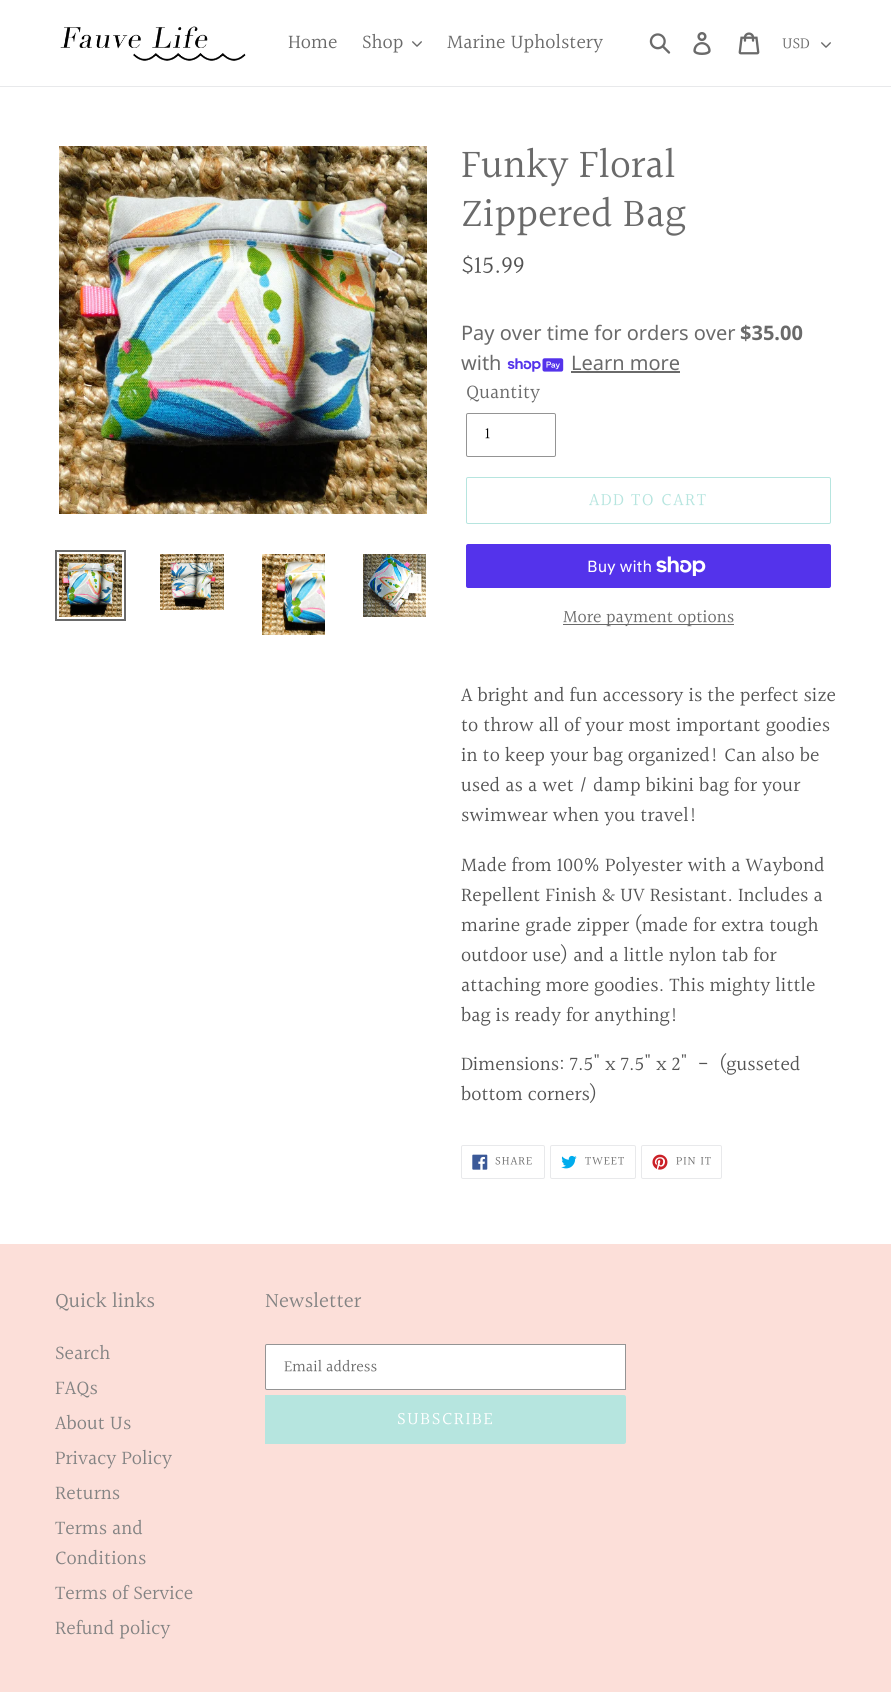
#include <cairo/cairo.h>
#include <math.h>
#include <stddef.h>


static void draw_spaced(cairo_t *cr, double x, double y, const char *s, double letter, double word) {
  cairo_move_to(cr, x, y);
  while (*s) {
    char ch[5] = {0};
    int n = 0;
    do ch[n++] = *s++; while ((*s & 0xC0) == 0x80);
    cairo_show_text(cr, ch);
    cairo_rel_move_to(cr, letter + word * (*ch == ' '), 0);
  }
}

static void rounded_rect(cairo_t *cr, double x, double y, double w, double h, double r) {
  cairo_new_sub_path(cr);
  cairo_arc(cr, x + w - r, y + h - r, r, 0, M_PI / 2);
  cairo_arc(cr, x + r, y + h - r, r, M_PI / 2, M_PI);
  cairo_arc(cr, x + r, y + r, r, M_PI, 1.5 * M_PI);
  cairo_arc(cr, x + w - r, y + r, r, 1.5 * M_PI, 2 * M_PI);
  cairo_close_path(cr);
}

static void draw_image(cairo_t *cr, const char *path, double x, double y, double w, double h) {
  cairo_surface_t *image = cairo_image_surface_create_from_png(path);
  cairo_save(cr);
  cairo_set_source_surface(cr, image, x, y);
  cairo_rectangle(cr, x, y, w, h);
  cairo_fill(cr);
  cairo_restore(cr);
  cairo_surface_destroy(image);
}

static void draw(cairo_t *cr) {
  cairo_set_source_rgb(cr, 1, 1, 1);
  cairo_paint(cr);
  cairo_set_source_rgb(cr, 232 / 255.0, 233 / 255.0, 235 / 255.0);
  cairo_rectangle(cr, 0, 86, 891, 1);
  cairo_fill(cr);
  draw_image(cr, "images/1.png", 60, 26, 186, 35);
  draw_image(cr, "images/2.png", 412, 41, 10, 6);
  draw_image(cr, "images/3.png", 649, 33, 22, 21);
  draw_image(cr, "images/4.png", 693, 32, 18, 23);
  draw_image(cr, "images/5.png", 738, 32, 22, 23);
  draw_image(cr, "images/2.png", 821, 42, 10, 6);
  draw_image(cr, "images/6.png", 59, 146, 368, 368);
  cairo_rectangle(cr, 56, 551, 69, 69);
  cairo_set_source_rgb(cr, 106 / 255.0, 106 / 255.0, 106 / 255.0);
  cairo_stroke(cr);
  draw_image(cr, "images/7.png", 59, 554, 63, 63);
  draw_image(cr, "images/8.png", 160, 554, 64, 56);
  draw_image(cr, "images/9.png", 262, 554, 63, 81);
  draw_image(cr, "images/10.png", 363, 554, 63, 63);
  draw_image(cr, "images/11.png", 507, 358, 57, 14);
  cairo_rectangle(cr, 571, 371, 109, 2);
  cairo_fill(cr);
  rounded_rect(cr, 466.5, 413.5, 89, 43, 1.5);
  cairo_set_source_rgb(cr, 148 / 255.0, 148 / 255.0, 148 / 255.0);
  cairo_set_line_width(cr, 1);
  cairo_stroke(cr);
  rounded_rect(cr, 466.5, 477.5, 364, 46, 1.5);
  cairo_set_source_rgb(cr, 182 / 255.0, 229 / 255.0, 223 / 255.0);
  cairo_stroke(cr);
  cairo_set_source_rgb(cr, 84 / 255.0, 51 / 255.0, 235 / 255.0);
  rounded_rect(cr, 466, 544, 365, 44, 2);
  cairo_fill(cr);
  draw_image(cr, "images/12.png", 656, 556, 50, 20);
  cairo_set_source_rgb(cr, 106 / 255.0, 106 / 255.0, 106 / 255.0);
  cairo_rectangle(cr, 563, 624, 171, 1);
  cairo_fill(cr);
  rounded_rect(cr, 461.5, 1145.5, 83, 33, 1.5);
  cairo_set_source_rgb(cr, 232 / 255.0, 233 / 255.0, 235 / 255.0);
  cairo_stroke(cr);
  draw_image(cr, "images/13.png", 472, 1154, 16, 16);
  rounded_rect(cr, 550.5, 1145.5, 85, 33, 1.5);
  cairo_stroke(cr);
  draw_image(cr, "images/14.png", 561, 1155, 16, 14);
  rounded_rect(cr, 641.5, 1145.5, 80, 33, 1.5);
  cairo_stroke(cr);
  draw_image(cr, "images/15.png", 652, 1154, 16, 16);
  cairo_set_source_rgb(cr, 252 / 255.0, 223 / 255.0, 217 / 255.0);
  cairo_rectangle(cr, 0, 1244, 891, 448);
  cairo_fill(cr);
  cairo_set_source_rgb(cr, 1, 1, 1);
  cairo_new_path(cr);
  cairo_move_to(cr, 267, 1344.5);
  cairo_line_to(cr, 625.5, 1344.5);
  cairo_line_to(cr, 625.5, 1389.5);
  cairo_line_to(cr, 267, 1389.5);
  cairo_curve_to(cr, 266, 1389.5, 265.5, 1389, 265.5, 1388);
  cairo_line_to(cr, 265.5, 1346);
  cairo_curve_to(cr, 265.5, 1345, 266, 1344.5, 267, 1344.5);
  cairo_close_path(cr);
  cairo_fill_preserve(cr);
  cairo_set_source_rgb(cr, 148 / 255.0, 148 / 255.0, 148 / 255.0);
  cairo_stroke(cr);
  cairo_set_source_rgb(cr, 182 / 255.0, 229 / 255.0, 223 / 255.0);
  cairo_new_path(cr);
  cairo_move_to(cr, 265, 1395);
  cairo_line_to(cr, 624, 1395);
  cairo_curve_to(cr, 625, 1395, 626, 1396, 626, 1397);
  cairo_line_to(cr, 626, 1442);
  cairo_curve_to(cr, 626, 1443, 625, 1444, 624, 1444);
  cairo_line_to(cr, 265, 1444);
  cairo_close_path(cr);
  cairo_fill(cr);
  cairo_select_font_face(cr, "Halant", CAIRO_FONT_SLANT_NORMAL, CAIRO_FONT_WEIGHT_NORMAL);
  cairo_set_font_size(cr, 20);
  cairo_set_source_rgb(cr, 106 / 255.0, 106 / 255.0, 106 / 255.0);
  cairo_move_to(cr, 288, 49);
  cairo_show_text(cr, "Home");
  cairo_move_to(cr, 362, 49);
  cairo_show_text(cr, "Shop");
  cairo_move_to(cr, 447, 49);
  cairo_show_text(cr, "Marine Upholstery");
  cairo_set_font_size(cr, 16);
  cairo_move_to(cr, 782, 49);
  cairo_show_text(cr, "USD");
  cairo_set_font_size(cr, 41);
  cairo_move_to(cr, 461, 179);
  cairo_show_text(cr, "Funky Floral");
  cairo_move_to(cr, 461, 228);
  cairo_show_text(cr, "Zippered Bag");
  cairo_set_font_size(cr, 25);
  cairo_set_source_rgb(cr, 83 / 255.0, 83 / 255.0, 83 / 255.0);
  cairo_move_to(cr, 461, 274);
  cairo_show_text(cr, "$15.99");
  cairo_select_font_face(cr, "Noto Sans", CAIRO_FONT_SLANT_NORMAL, CAIRO_FONT_WEIGHT_NORMAL);
  cairo_set_font_size(cr, 20);
  cairo_set_source_rgb(cr, 106 / 255.0, 106 / 255.0, 106 / 255.0);
  cairo_move_to(cr, 461, 340);
  cairo_show_text(cr, "Pay over time for orders over");
  cairo_select_font_face(cr, "Noto Sans", CAIRO_FONT_SLANT_NORMAL, CAIRO_FONT_WEIGHT_BOLD);
  cairo_move_to(cr, 740, 340);
  cairo_show_text(cr, "$35.00");
  cairo_select_font_face(cr, "Noto Sans", CAIRO_FONT_SLANT_NORMAL, CAIRO_FONT_WEIGHT_NORMAL);
  cairo_move_to(cr, 461, 370);
  cairo_show_text(cr, "with");
  cairo_move_to(cr, 571, 370);
  cairo_show_text(cr, "Learn more");
  cairo_select_font_face(cr, "Halant", CAIRO_FONT_SLANT_NORMAL, CAIRO_FONT_WEIGHT_NORMAL);
  cairo_move_to(cr, 466, 399);
  cairo_show_text(cr, "Quantity");
  cairo_set_font_size(cr, 16);
  cairo_set_source_rgb(cr, 0, 0, 0);
  cairo_move_to(cr, 485, 439);
  cairo_show_text(cr, "1");
  cairo_set_font_size(cr, 18);
  cairo_set_source_rgb(cr, 182 / 255.0, 229 / 255.0, 223 / 255.0);
  draw_spaced(cr, 589, 506, "ADD TO CART", 1.5, 0);
  cairo_select_font_face(cr, "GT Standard", CAIRO_FONT_SLANT_NORMAL, CAIRO_FONT_WEIGHT_NORMAL);
  cairo_set_font_size(cr, 16);
  cairo_set_source_rgb(cr, 1, 1, 1);
  cairo_move_to(cr, 587, 572);
  cairo_show_text(cr, "Buy with");
  cairo_select_font_face(cr, "Halant", CAIRO_FONT_SLANT_NORMAL, CAIRO_FONT_WEIGHT_NORMAL);
  cairo_set_font_size(cr, 18);
  cairo_set_source_rgb(cr, 106 / 255.0, 106 / 255.0, 106 / 255.0);
  cairo_move_to(cr, 563, 623);
  cairo_show_text(cr, "More payment options");
  cairo_set_font_size(cr, 20);
  cairo_set_source_rgb(cr, 83 / 255.0, 83 / 255.0, 83 / 255.0);
  cairo_move_to(cr, 461, 702);
  cairo_show_text(cr, "A bright and fun accessory is the perfect size");
  cairo_move_to(cr, 461, 732);
  cairo_show_text(cr, "to throw all of your most important goodies");
  cairo_move_to(cr, 461, 762);
  cairo_show_text(cr, "in to keep your bag organized! Can also be");
  cairo_move_to(cr, 461, 792);
  cairo_show_text(cr, "used as a wet / damp bikini bag for your");
  cairo_move_to(cr, 461, 822);
  cairo_show_text(cr, "swimwear when you travel!");
  cairo_move_to(cr, 461, 872);
  cairo_show_text(cr, "Made from 100% Polyester with a Waybond");
  cairo_move_to(cr, 461, 902);
  cairo_show_text(cr, "Repellent Finish & UV Resistant. Includes a");
  cairo_move_to(cr, 461, 932);
  cairo_show_text(cr, "marine grade zipper (made for extra tough");
  cairo_move_to(cr, 461, 962);
  cairo_show_text(cr, "outdoor use) and a little nylon tab for");
  cairo_move_to(cr, 461, 992);
  cairo_show_text(cr, "attaching more goodies. This mighty little");
  cairo_move_to(cr, 461, 1022);
  cairo_show_text(cr, "bag is ready for anything!");
  cairo_move_to(cr, 461, 1071);
  cairo_show_text(cr, "Dimensions: 7.5\" x 7.5\" x 2\"  -  (gusseted");
  cairo_move_to(cr, 461, 1101);
  cairo_show_text(cr, "bottom corners)");
  cairo_set_font_size(cr, 12);
  cairo_set_source_rgb(cr, 106 / 255.0, 106 / 255.0, 106 / 255.0);
  draw_spaced(cr, 495, 1165, "SHARE", 1, 0);
  draw_spaced(cr, 585, 1165, "TWEET", 1, 0);
  draw_spaced(cr, 676, 1165, "PIN IT", 1, 0);
  cairo_set_font_size(cr, 21);
  cairo_set_source_rgb(cr, 131 / 255.0, 131 / 255.0, 131 / 255.0);
  cairo_move_to(cr, 55, 1308);
  cairo_show_text(cr, "Quick links");
  cairo_set_font_size(cr, 20);
  cairo_move_to(cr, 55, 1360);
  cairo_show_text(cr, "Search");
  cairo_move_to(cr, 55, 1395);
  cairo_show_text(cr, "FAQs");
  cairo_move_to(cr, 55, 1430);
  cairo_show_text(cr, "About Us");
  cairo_move_to(cr, 55, 1465);
  cairo_show_text(cr, "Privacy Policy");
  cairo_move_to(cr, 55, 1500);
  cairo_show_text(cr, "Returns");
  cairo_move_to(cr, 55, 1535);
  cairo_show_text(cr, "Terms and");
  cairo_move_to(cr, 55, 1565);
  cairo_show_text(cr, "Conditions");
  cairo_move_to(cr, 55, 1600);
  cairo_show_text(cr, "Terms of Service");
  cairo_move_to(cr, 55, 1635);
  cairo_show_text(cr, "Refund policy");
  cairo_set_font_size(cr, 21);
  cairo_move_to(cr, 265, 1308);
  cairo_show_text(cr, "Newsletter");
  cairo_set_font_size(cr, 16);
  cairo_set_source_rgb(cr, 106 / 255.0, 106 / 255.0, 106 / 255.0);
  cairo_move_to(cr, 284, 1372);
  cairo_show_text(cr, "Email address");
  cairo_set_font_size(cr, 18);
  cairo_set_source_rgb(cr, 1, 1, 1);
  draw_spaced(cr, 397, 1425, "SUBSCRIBE", 1.5, 0);
}

int main(void) {
  cairo_surface_t *surface = cairo_image_surface_create(CAIRO_FORMAT_RGB24, 891, 1692);
  cairo_t *cr = cairo_create(surface);
  cairo_font_options_t *options = cairo_font_options_create();
  cairo_font_options_set_hint_metrics(options, CAIRO_HINT_METRICS_OFF);
  cairo_font_options_set_hint_style(options, CAIRO_HINT_STYLE_NONE);
  cairo_set_font_options(cr, options);
  cairo_set_miter_limit(cr, 4);
  draw(cr);
  cairo_surface_write_to_png(surface, "out.png");
  cairo_font_options_destroy(options);
  cairo_destroy(cr);
  cairo_surface_destroy(surface);
  return 0;
}
